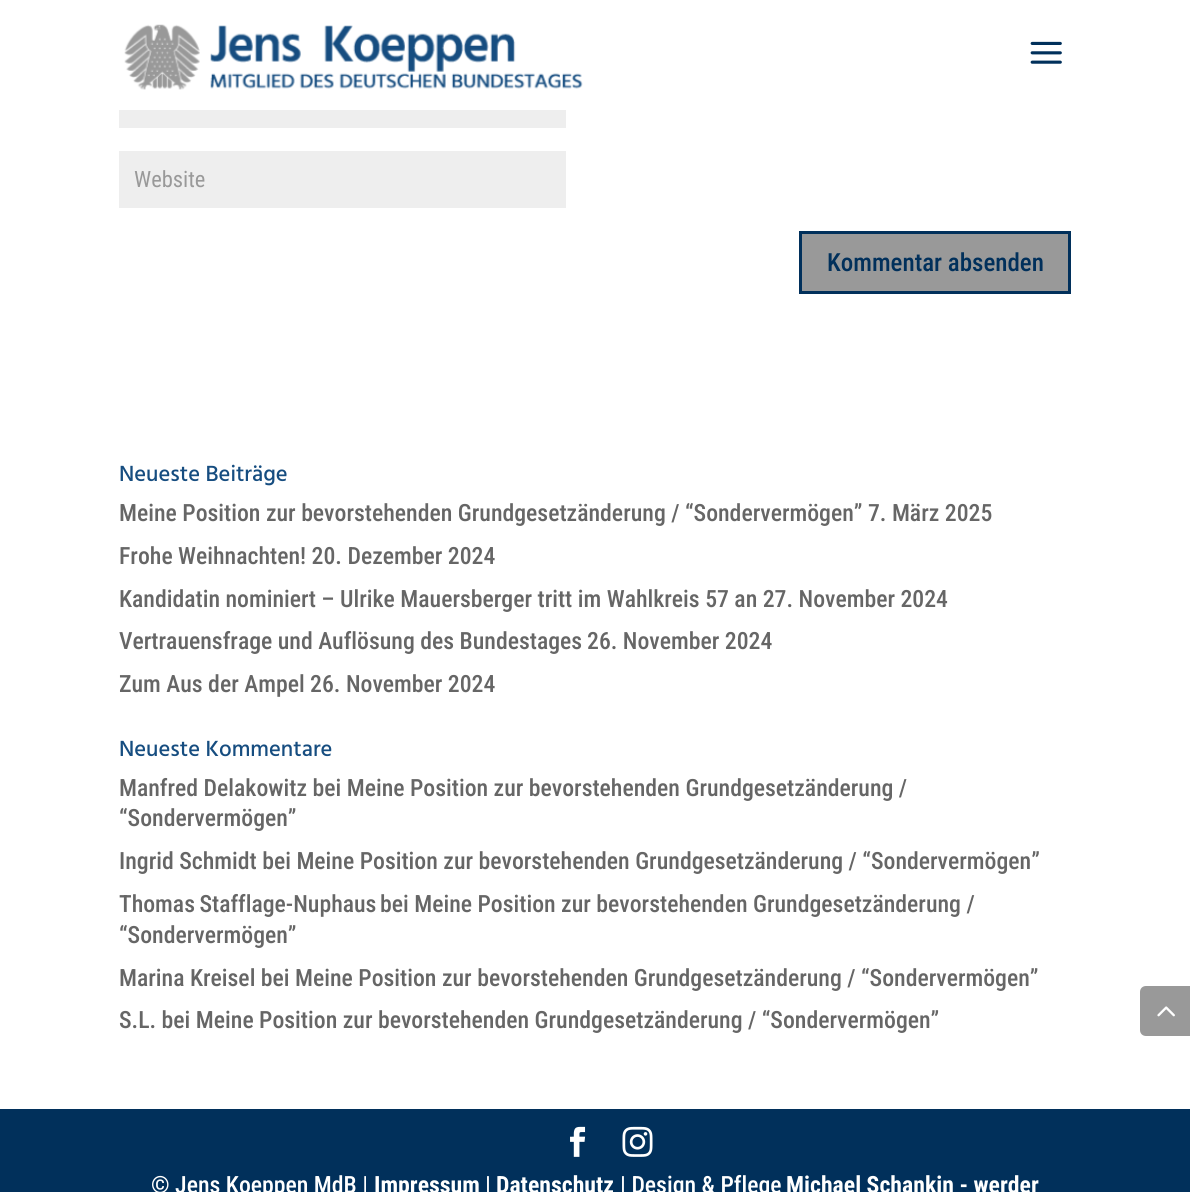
#include <cairo/cairo.h>
#include <math.h>
#include <stddef.h>


static void draw_spaced(cairo_t *cr, double x, double y, const char *s, double letter, double word) {
  cairo_move_to(cr, x, y);
  while (*s) {
    char ch[5] = {0};
    int n = 0;
    do ch[n++] = *s++; while ((*s & 0xC0) == 0x80);
    cairo_show_text(cr, ch);
    cairo_rel_move_to(cr, letter + word * (*ch == ' '), 0);
  }
}

static void draw_image(cairo_t *cr, const char *path, double x, double y, double w, double h) {
  cairo_surface_t *image = cairo_image_surface_create_from_png(path);
  cairo_save(cr);
  cairo_set_source_surface(cr, image, x, y);
  cairo_rectangle(cr, x, y, w, h);
  cairo_fill(cr);
  cairo_restore(cr);
  cairo_surface_destroy(image);
}

static void draw(cairo_t *cr) {
  cairo_set_source_rgb(cr, 1, 1, 1);
  cairo_paint(cr);
  draw_image(cr, "images/1.png", 124, 24, 459, 66);
  draw_image(cr, "images/2.png", 1030, 41, 32, 23);
  cairo_set_source_rgb(cr, 238 / 255.0, 238 / 255.0, 238 / 255.0);
  cairo_rectangle(cr, 119, 110, 447, 18);
  cairo_fill(cr);
  cairo_rectangle(cr, 119, 151, 447, 57);
  cairo_fill(cr);
  cairo_set_source_rgb(cr, 153 / 255.0, 153 / 255.0, 153 / 255.0);
  cairo_rectangle(cr, 800.5, 232.5, 269, 60);
  cairo_fill_preserve(cr);
  cairo_set_source_rgb(cr, 1 / 255.0, 48 / 255.0, 91 / 255.0);
  cairo_set_line_width(cr, 3);
  cairo_stroke(cr);
  cairo_set_source_rgb(cr, 153 / 255.0, 153 / 255.0, 153 / 255.0);
  cairo_new_path(cr);
  cairo_move_to(cr, 1146, 986);
  cairo_line_to(cr, 1190, 986);
  cairo_line_to(cr, 1190, 1036);
  cairo_line_to(cr, 1146, 1036);
  cairo_curve_to(cr, 1142.5, 1036, 1140, 1033.5, 1140, 1030);
  cairo_line_to(cr, 1140, 992);
  cairo_curve_to(cr, 1140, 988.5, 1142.5, 986, 1146, 986);
  cairo_close_path(cr);
  cairo_fill(cr);
  draw_image(cr, "images/3.png", 1157, 1006, 18, 11);
  cairo_set_source_rgb(cr, 1 / 255.0, 48 / 255.0, 91 / 255.0);
  cairo_rectangle(cr, 0, 1109, 1190, 83);
  cairo_fill(cr);
  draw_image(cr, "images/4.png", 570, 1126, 16, 31);
  draw_image(cr, "images/5.png", 622, 1126, 31, 31);
  cairo_select_font_face(cr, "Roboto Condensed", CAIRO_FONT_SLANT_NORMAL, CAIRO_FONT_WEIGHT_NORMAL);
  cairo_set_font_size(cr, 22.5);
  cairo_set_source_rgb(cr, 153 / 255.0, 153 / 255.0, 153 / 255.0);
  cairo_move_to(cr, 134, 187);
  cairo_show_text(cr, "Website");
  cairo_select_font_face(cr, "Roboto Condensed Medium", CAIRO_FONT_SLANT_NORMAL, CAIRO_FONT_WEIGHT_NORMAL);
  cairo_set_font_size(cr, 25);
  cairo_set_source_rgb(cr, 1 / 255.0, 48 / 255.0, 91 / 255.0);
  cairo_move_to(cr, 827, 271);
  cairo_show_text(cr, "Kommentar absenden");
  cairo_select_font_face(cr, "Hind Madurai Medium", CAIRO_FONT_SLANT_NORMAL, CAIRO_FONT_WEIGHT_NORMAL);
  cairo_set_font_size(cr, 22.5);
  cairo_set_source_rgb(cr, 22 / 255.0, 77 / 255.0, 128 / 255.0);
  cairo_move_to(cr, 119, 481);
  cairo_show_text(cr, "Neueste Beiträge");
  cairo_select_font_face(cr, "Roboto Condensed Medium", CAIRO_FONT_SLANT_NORMAL, CAIRO_FONT_WEIGHT_NORMAL);
  cairo_set_font_size(cr, 23.75);
  cairo_set_source_rgb(cr, 102 / 255.0, 102 / 255.0, 102 / 255.0);
  cairo_move_to(cr, 119, 521);
  cairo_show_text(cr, "Meine Position zur bevorstehenden Grundgesetzänderung / “Sondervermögen” 7. März 2025");
  cairo_move_to(cr, 119, 564);
  cairo_show_text(cr, "Frohe Weihnachten! 20. Dezember 2024");
  cairo_move_to(cr, 119, 607);
  cairo_show_text(cr, "Kandidatin nominiert – Ulrike Mauersberger tritt im Wahlkreis 57 an 27. November 2024");
  cairo_move_to(cr, 119, 649);
  cairo_show_text(cr, "Vertrauensfrage und Auflösung des Bundestages");
  cairo_move_to(cr, 587, 649);
  cairo_show_text(cr, "26. November 2024");
  cairo_move_to(cr, 119, 692);
  cairo_show_text(cr, "Zum Aus der Ampel 26. November 2024");
  cairo_select_font_face(cr, "Hind Madurai Medium", CAIRO_FONT_SLANT_NORMAL, CAIRO_FONT_WEIGHT_NORMAL);
  cairo_set_font_size(cr, 22.5);
  cairo_set_source_rgb(cr, 22 / 255.0, 77 / 255.0, 128 / 255.0);
  cairo_move_to(cr, 119, 756);
  cairo_show_text(cr, "Neueste Kommentare");
  cairo_select_font_face(cr, "Roboto Condensed Medium", CAIRO_FONT_SLANT_NORMAL, CAIRO_FONT_WEIGHT_NORMAL);
  cairo_set_font_size(cr, 23.75);
  cairo_set_source_rgb(cr, 102 / 255.0, 102 / 255.0, 102 / 255.0);
  cairo_move_to(cr, 119, 796);
  cairo_show_text(cr, "Manfred Delakowitz bei Meine Position zur bevorstehenden Grundgesetzänderung /");
  cairo_move_to(cr, 119, 826);
  cairo_show_text(cr, "“Sondervermögen”");
  cairo_move_to(cr, 119, 869);
  cairo_show_text(cr, "Ingrid Schmidt bei Meine Position zur bevorstehenden Grundgesetzänderung / “Sondervermögen”");
  draw_spaced(cr, 119, 912, "Thomas Stafflage-Nuphaus", 0, -1);
  cairo_move_to(cr, 380, 912);
  cairo_show_text(cr, "bei Meine Position zur bevorstehenden Grundgesetzänderung /");
  cairo_move_to(cr, 119, 943);
  cairo_show_text(cr, "“Sondervermögen”");
  cairo_move_to(cr, 119, 986);
  cairo_show_text(cr, "Marina Kreisel bei Meine Position zur bevorstehenden Grundgesetzänderung / “Sondervermögen”");
  cairo_move_to(cr, 119, 1028);
  cairo_show_text(cr, "S.L. bei Meine Position zur bevorstehenden Grundgesetzänderung / “Sondervermögen”");
  cairo_set_source_rgb(cr, 1, 1, 1);
  cairo_move_to(cr, 151, 1193);
  cairo_show_text(cr, "© Jens Koeppen MdB |");
  cairo_select_font_face(cr, "Roboto Condensed", CAIRO_FONT_SLANT_NORMAL, CAIRO_FONT_WEIGHT_BOLD);
  cairo_move_to(cr, 374, 1193);
  cairo_show_text(cr, "Impressum");
  cairo_select_font_face(cr, "Roboto Condensed Medium", CAIRO_FONT_SLANT_NORMAL, CAIRO_FONT_WEIGHT_NORMAL);
  cairo_move_to(cr, 485, 1193);
  cairo_show_text(cr, "|");
  cairo_select_font_face(cr, "Roboto Condensed", CAIRO_FONT_SLANT_NORMAL, CAIRO_FONT_WEIGHT_BOLD);
  cairo_move_to(cr, 496, 1193);
  cairo_show_text(cr, "Datenschutz");
  cairo_select_font_face(cr, "Roboto Condensed Medium", CAIRO_FONT_SLANT_NORMAL, CAIRO_FONT_WEIGHT_NORMAL);
  cairo_move_to(cr, 620, 1193);
  cairo_show_text(cr, "| Design & Pflege");
  cairo_select_font_face(cr, "Roboto Condensed", CAIRO_FONT_SLANT_NORMAL, CAIRO_FONT_WEIGHT_BOLD);
  cairo_move_to(cr, 786, 1193);
  cairo_show_text(cr, "Michael Schankin - werder");
}

int main(void) {
  cairo_surface_t *surface = cairo_image_surface_create(CAIRO_FORMAT_RGB24, 1190, 1192);
  cairo_t *cr = cairo_create(surface);
  cairo_font_options_t *options = cairo_font_options_create();
  cairo_font_options_set_hint_metrics(options, CAIRO_HINT_METRICS_OFF);
  cairo_font_options_set_hint_style(options, CAIRO_HINT_STYLE_NONE);
  cairo_set_font_options(cr, options);
  cairo_set_miter_limit(cr, 4);
  draw(cr);
  cairo_surface_write_to_png(surface, "out.png");
  cairo_font_options_destroy(options);
  cairo_destroy(cr);
  cairo_surface_destroy(surface);
  return 0;
}
